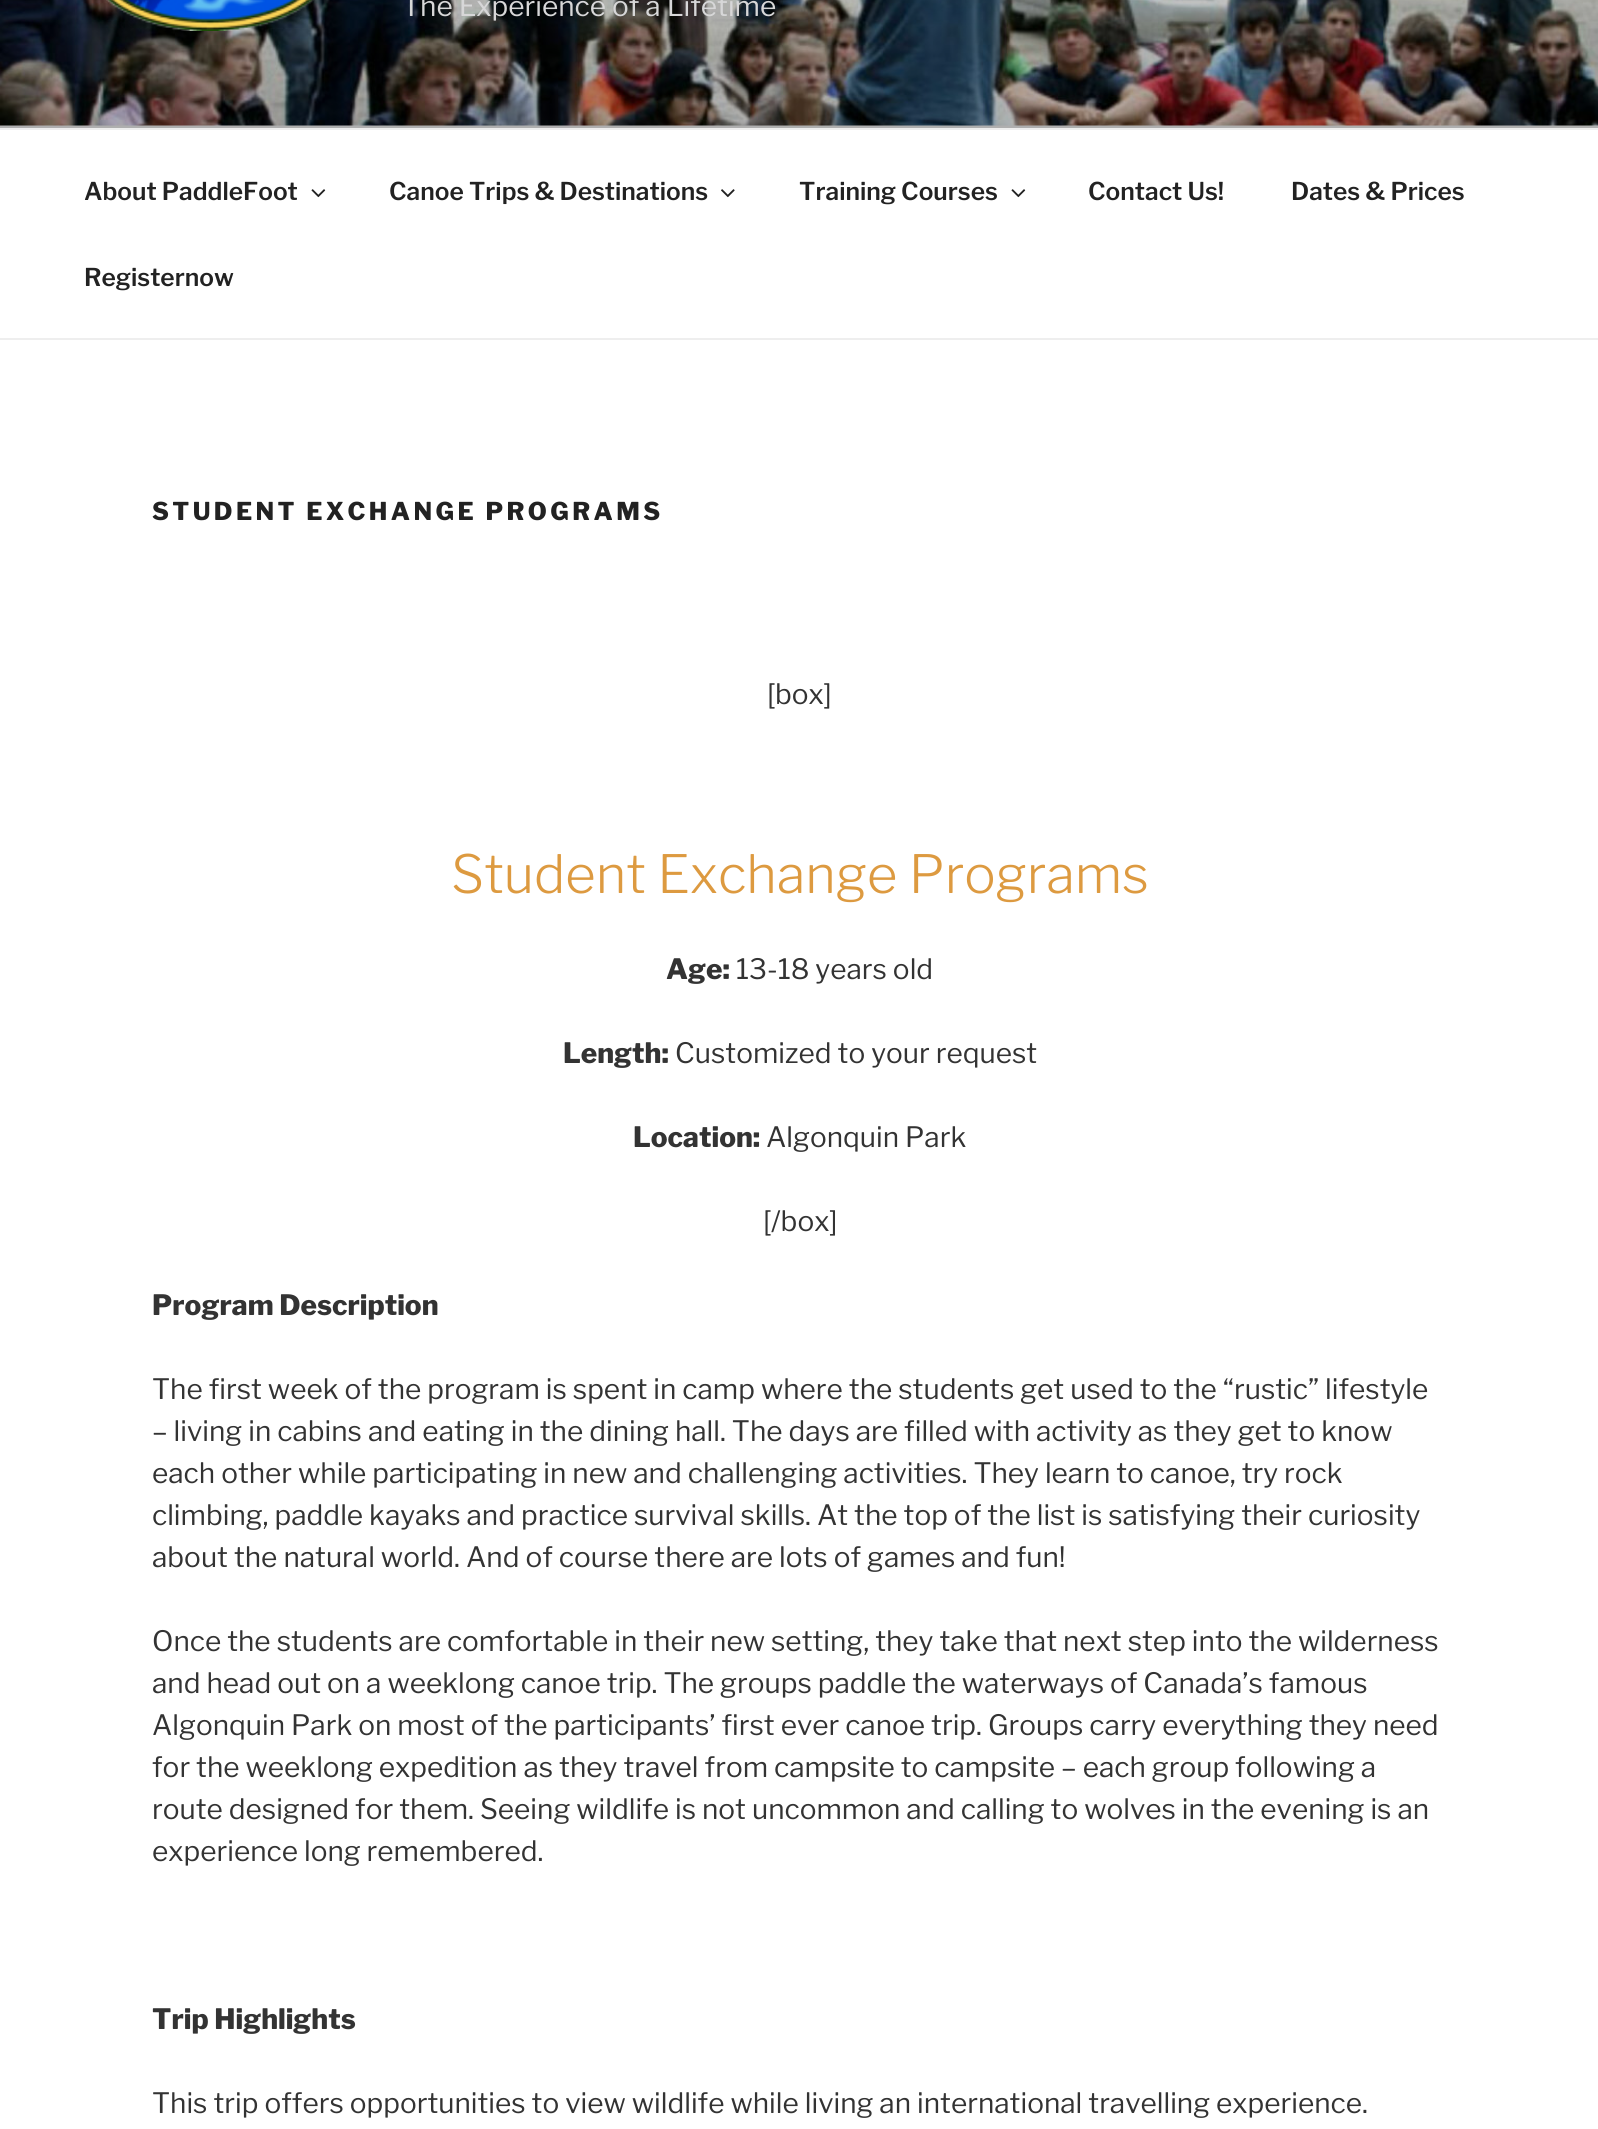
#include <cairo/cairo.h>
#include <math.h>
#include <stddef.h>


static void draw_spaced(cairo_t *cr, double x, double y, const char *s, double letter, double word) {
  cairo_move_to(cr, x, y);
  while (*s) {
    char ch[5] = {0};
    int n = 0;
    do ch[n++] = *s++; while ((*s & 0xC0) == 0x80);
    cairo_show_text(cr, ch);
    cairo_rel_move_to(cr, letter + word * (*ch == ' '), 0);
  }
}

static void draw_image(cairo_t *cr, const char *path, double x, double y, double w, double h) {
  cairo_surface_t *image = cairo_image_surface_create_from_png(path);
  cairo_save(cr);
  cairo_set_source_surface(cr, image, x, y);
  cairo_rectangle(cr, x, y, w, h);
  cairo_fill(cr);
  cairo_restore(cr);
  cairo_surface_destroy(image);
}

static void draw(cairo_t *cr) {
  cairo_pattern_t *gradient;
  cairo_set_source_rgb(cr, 1, 1, 1);
  cairo_paint(cr);
  cairo_set_source_rgb(cr, 250 / 255.0, 250 / 255.0, 250 / 255.0);
  cairo_rectangle(cr, 0, 125, 1598, 3);
  cairo_fill(cr);
  draw_image(cr, "images/1.png", 0, 0, 1598, 126);
  gradient = cairo_pattern_create_linear(800, -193, 800, 128);
  cairo_pattern_add_color_stop_rgba(gradient, 0, 0, 0, 0, 0);
  cairo_pattern_add_color_stop_rgba(gradient, 0.75, 0, 0, 0, 0.3);
  cairo_pattern_add_color_stop_rgba(gradient, 1, 0, 0, 0, 0.3);
  cairo_set_source(cr, gradient);
  cairo_pattern_destroy(gradient);
  cairo_rectangle(cr, 0, 0, 1598, 128);
  cairo_fill(cr);
  draw_image(cr, "images/2.png", 106, 0, 208, 31);
  cairo_set_source_rgb(cr, 238 / 255.0, 238 / 255.0, 238 / 255.0);
  cairo_rectangle(cr, 0, 128, 1598, 2);
  cairo_fill(cr);
  cairo_rectangle(cr, 0, 338, 1598, 2);
  cairo_fill(cr);
  draw_image(cr, "images/3.png", 311, 189, 15, 9);
  draw_image(cr, "images/4.png", 721, 189, 14, 9);
  draw_image(cr, "images/3.png", 1011, 189, 15, 9);
  cairo_select_font_face(cr, "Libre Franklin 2 Thin", CAIRO_FONT_SLANT_NORMAL, CAIRO_FONT_WEIGHT_NORMAL);
  cairo_set_font_size(cr, 28);
  cairo_set_source_rgb(cr, 215 / 255.0, 215 / 255.0, 216 / 255.0);
  cairo_move_to(cr, 402, 16);
  cairo_show_text(cr, "The Experience of a Lifetime");
  cairo_select_font_face(cr, "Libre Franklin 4 Thin", CAIRO_FONT_SLANT_NORMAL, CAIRO_FONT_WEIGHT_NORMAL);
  cairo_set_font_size(cr, 24.5);
  cairo_set_source_rgb(cr, 34 / 255.0, 34 / 255.0, 34 / 255.0);
  cairo_move_to(cr, 84, 200);
  cairo_show_text(cr, "About PaddleFoot");
  cairo_move_to(cr, 389, 200);
  cairo_show_text(cr, "Canoe Trips & Destinations");
  cairo_move_to(cr, 799, 200);
  cairo_show_text(cr, "Training Courses");
  cairo_move_to(cr, 1088, 200);
  cairo_show_text(cr, "Contact Us!");
  cairo_move_to(cr, 1291, 200);
  cairo_show_text(cr, "Dates & Prices");
  cairo_move_to(cr, 84, 286);
  cairo_show_text(cr, "Registernow");
  cairo_select_font_face(cr, "Libre Franklin Thin", CAIRO_FONT_SLANT_NORMAL, CAIRO_FONT_WEIGHT_NORMAL);
  draw_spaced(cr, 152, 520, "STUDENT EXCHANGE PROGRAMS", 3.4, 0);
  cairo_select_font_face(cr, "Libre Franklin 2 Thin", CAIRO_FONT_SLANT_NORMAL, CAIRO_FONT_WEIGHT_NORMAL);
  cairo_set_font_size(cr, 28);
  cairo_set_source_rgb(cr, 51 / 255.0, 51 / 255.0, 51 / 255.0);
  cairo_move_to(cr, 767, 704);
  cairo_show_text(cr, "[box]");
  cairo_select_font_face(cr, "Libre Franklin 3 Thin", CAIRO_FONT_SLANT_NORMAL, CAIRO_FONT_WEIGHT_NORMAL);
  cairo_set_font_size(cr, 52.5);
  cairo_set_source_rgb(cr, 221 / 255.0, 154 / 255.0, 64 / 255.0);
  cairo_move_to(cr, 451, 893);
  cairo_show_text(cr, "Student Exchange Programs");
  cairo_select_font_face(cr, "Libre Franklin Thin", CAIRO_FONT_SLANT_NORMAL, CAIRO_FONT_WEIGHT_NORMAL);
  cairo_set_font_size(cr, 28);
  cairo_set_source_rgb(cr, 51 / 255.0, 51 / 255.0, 51 / 255.0);
  cairo_move_to(cr, 666, 979);
  cairo_show_text(cr, "Age:");
  cairo_select_font_face(cr, "Libre Franklin 2 Thin", CAIRO_FONT_SLANT_NORMAL, CAIRO_FONT_WEIGHT_NORMAL);
  cairo_move_to(cr, 736, 979);
  cairo_show_text(cr, "13-18 years old");
  cairo_select_font_face(cr, "Libre Franklin Thin", CAIRO_FONT_SLANT_NORMAL, CAIRO_FONT_WEIGHT_NORMAL);
  cairo_move_to(cr, 563, 1063);
  cairo_show_text(cr, "Length:");
  cairo_select_font_face(cr, "Libre Franklin 2 Thin", CAIRO_FONT_SLANT_NORMAL, CAIRO_FONT_WEIGHT_NORMAL);
  cairo_move_to(cr, 675, 1063);
  cairo_show_text(cr, "Customized to your request");
  cairo_select_font_face(cr, "Libre Franklin Thin", CAIRO_FONT_SLANT_NORMAL, CAIRO_FONT_WEIGHT_NORMAL);
  cairo_move_to(cr, 633, 1147);
  cairo_show_text(cr, "Location:");
  cairo_select_font_face(cr, "Libre Franklin 2 Thin", CAIRO_FONT_SLANT_NORMAL, CAIRO_FONT_WEIGHT_NORMAL);
  cairo_move_to(cr, 766, 1147);
  cairo_show_text(cr, "Algonquin Park");
  cairo_move_to(cr, 763, 1231);
  cairo_show_text(cr, "[/box]");
  cairo_select_font_face(cr, "Libre Franklin Thin", CAIRO_FONT_SLANT_NORMAL, CAIRO_FONT_WEIGHT_NORMAL);
  cairo_move_to(cr, 152, 1315);
  cairo_show_text(cr, "Program Description");
  cairo_select_font_face(cr, "Libre Franklin 2 Thin", CAIRO_FONT_SLANT_NORMAL, CAIRO_FONT_WEIGHT_NORMAL);
  cairo_move_to(cr, 152, 1399);
  cairo_show_text(cr, "The first week of the program is spent in camp where the students get used to the “rustic” lifestyle");
  cairo_move_to(cr, 152, 1441);
  cairo_show_text(cr, "– living in cabins and eating in the dining hall. The days are filled with activity as they get to know");
  cairo_move_to(cr, 152, 1483);
  cairo_show_text(cr, "each other while participating in new and challenging activities. They learn to canoe, try rock");
  cairo_move_to(cr, 152, 1525);
  cairo_show_text(cr, "climbing, paddle kayaks and practice survival skills. At the top of the list is satisfying their curiosity");
  cairo_move_to(cr, 152, 1567);
  cairo_show_text(cr, "about the natural world. And of course there are lots of games and fun!");
  cairo_move_to(cr, 152, 1651);
  cairo_show_text(cr, "Once the students are comfortable in their new setting, they take that next step into the wilderness");
  cairo_move_to(cr, 152, 1693);
  cairo_show_text(cr, "and head out on a weeklong canoe trip. The groups paddle the waterways of Canada’s famous");
  cairo_move_to(cr, 152, 1735);
  cairo_show_text(cr, "Algonquin Park on most of the participants’ first ever canoe trip. Groups carry everything they need");
  cairo_move_to(cr, 152, 1777);
  cairo_show_text(cr, "for the weeklong expedition as they travel from campsite to campsite – each group following a");
  cairo_move_to(cr, 152, 1819);
  cairo_show_text(cr, "route designed for them. Seeing wildlife is not uncommon and calling to wolves in the evening is an");
  cairo_move_to(cr, 152, 1861);
  cairo_show_text(cr, "experience long remembered.");
  cairo_select_font_face(cr, "Libre Franklin Thin", CAIRO_FONT_SLANT_NORMAL, CAIRO_FONT_WEIGHT_NORMAL);
  cairo_move_to(cr, 152, 2029);
  cairo_show_text(cr, "Trip Highlights");
  cairo_select_font_face(cr, "Libre Franklin 2 Thin", CAIRO_FONT_SLANT_NORMAL, CAIRO_FONT_WEIGHT_NORMAL);
  cairo_move_to(cr, 152, 2113);
  cairo_show_text(cr, "This trip offers opportunities to view wildlife while living an international travelling experience.");
}

int main(void) {
  cairo_surface_t *surface = cairo_image_surface_create(CAIRO_FORMAT_RGB24, 1598, 2129);
  cairo_t *cr = cairo_create(surface);
  cairo_font_options_t *options = cairo_font_options_create();
  cairo_font_options_set_hint_metrics(options, CAIRO_HINT_METRICS_OFF);
  cairo_font_options_set_hint_style(options, CAIRO_HINT_STYLE_NONE);
  cairo_set_font_options(cr, options);
  cairo_set_miter_limit(cr, 4);
  draw(cr);
  cairo_surface_write_to_png(surface, "out.png");
  cairo_font_options_destroy(options);
  cairo_destroy(cr);
  cairo_surface_destroy(surface);
  return 0;
}
